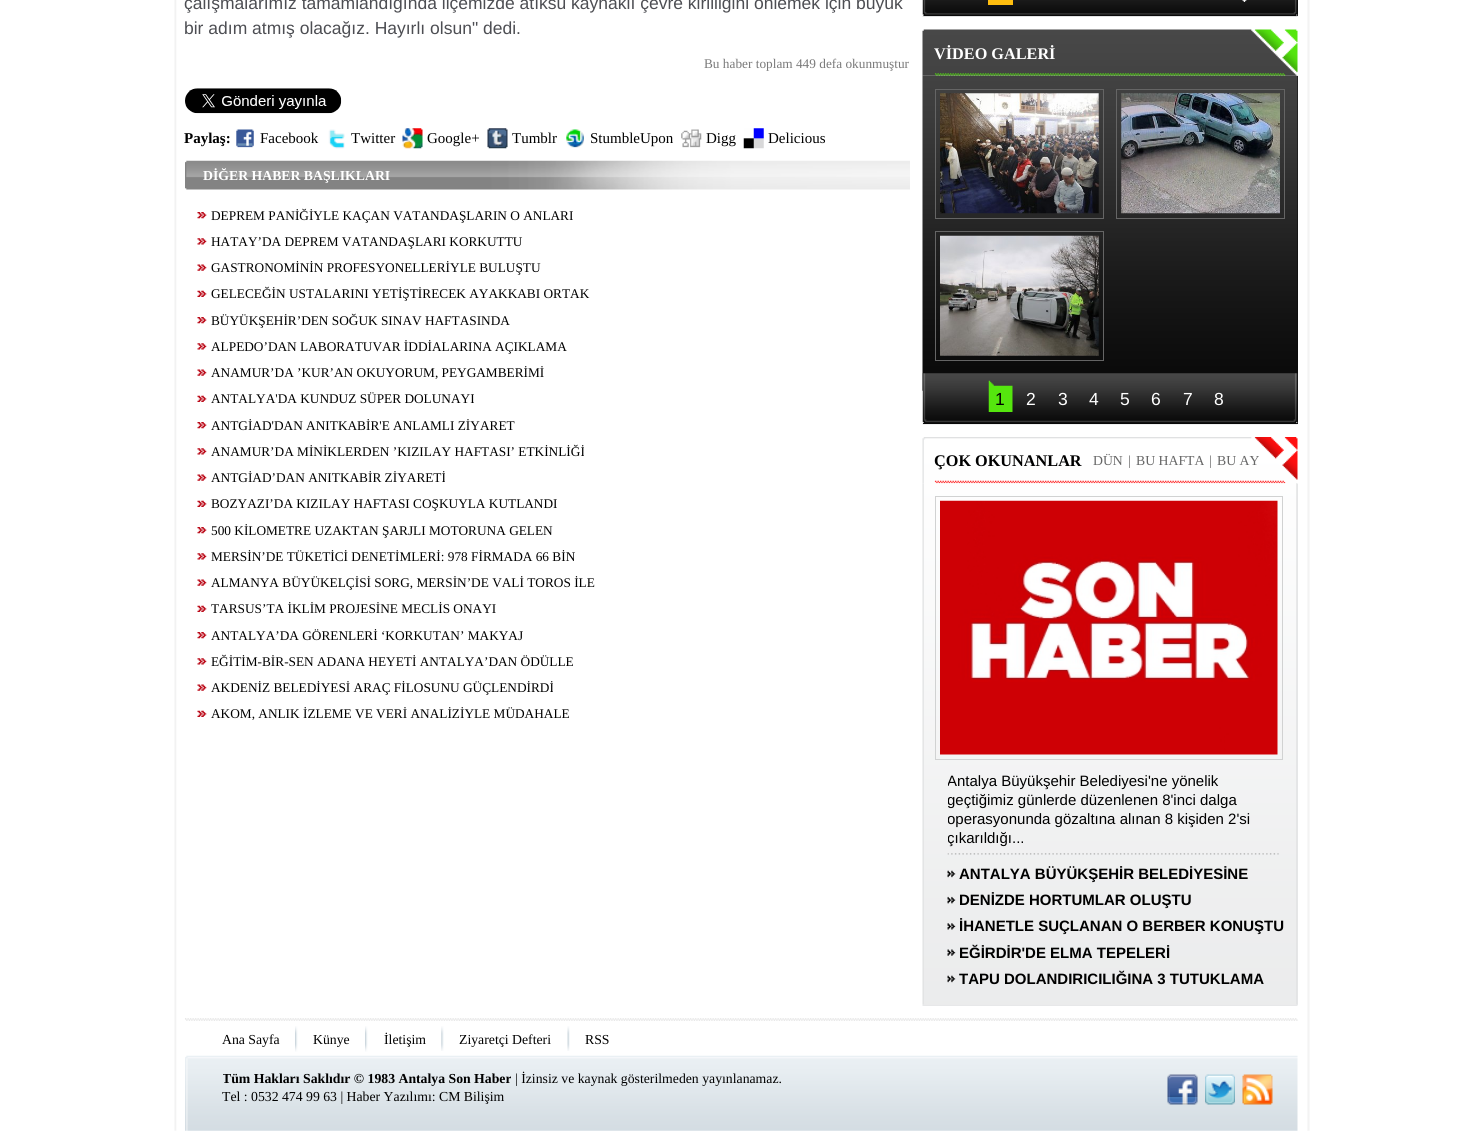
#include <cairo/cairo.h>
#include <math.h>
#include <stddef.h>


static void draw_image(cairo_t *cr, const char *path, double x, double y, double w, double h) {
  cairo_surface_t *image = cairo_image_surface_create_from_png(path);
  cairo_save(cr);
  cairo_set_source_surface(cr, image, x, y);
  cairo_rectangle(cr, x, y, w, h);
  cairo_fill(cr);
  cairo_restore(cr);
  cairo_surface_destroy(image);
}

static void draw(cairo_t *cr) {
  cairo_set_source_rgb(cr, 1, 1, 1);
  cairo_paint(cr);
  draw_image(cr, "images/1.png", 174, 0, 1136, 1131);
  draw_image(cr, "images/2.png", 185, 88, 157, 26);
  draw_image(cr, "images/3.png", 236, 129, 18, 19);
  draw_image(cr, "images/4.png", 328, 129, 17, 20);
  draw_image(cr, "images/5.png", 402, 128, 21, 21);
  draw_image(cr, "images/6.png", 487, 128, 21, 21);
  draw_image(cr, "images/7.png", 566, 129, 18, 19);
  draw_image(cr, "images/8.png", 681, 129, 21, 19);
  draw_image(cr, "images/9.png", 743, 128, 21, 21);
  draw_image(cr, "images/10.png", 185, 160, 725, 30);
  draw_image(cr, "images/11.png", 197, 212, 10, 7);
  draw_image(cr, "images/12.png", 197, 238, 10, 7);
  draw_image(cr, "images/13.png", 197, 264, 10, 7);
  draw_image(cr, "images/14.png", 197, 290, 10, 7);
  draw_image(cr, "images/11.png", 197, 317, 10, 7);
  draw_image(cr, "images/12.png", 197, 343, 10, 7);
  draw_image(cr, "images/13.png", 197, 369, 10, 7);
  draw_image(cr, "images/14.png", 197, 395, 10, 7);
  draw_image(cr, "images/11.png", 197, 422, 10, 7);
  draw_image(cr, "images/12.png", 197, 448, 10, 7);
  draw_image(cr, "images/13.png", 197, 474, 10, 7);
  draw_image(cr, "images/14.png", 197, 500, 10, 7);
  draw_image(cr, "images/11.png", 197, 527, 10, 7);
  draw_image(cr, "images/12.png", 197, 553, 10, 7);
  draw_image(cr, "images/13.png", 197, 579, 10, 7);
  draw_image(cr, "images/14.png", 197, 605, 10, 7);
  draw_image(cr, "images/11.png", 197, 632, 10, 7);
  draw_image(cr, "images/12.png", 197, 658, 10, 7);
  draw_image(cr, "images/13.png", 197, 684, 10, 7);
  draw_image(cr, "images/14.png", 197, 710, 10, 7);
  draw_image(cr, "images/17.png", 922, 15, 376, 2);
  cairo_set_source_rgb(cr, 9 / 255.0, 9 / 255.0, 9 / 255.0);
  cairo_rectangle(cr, 923, 0, 375, 16);
  cairo_fill(cr);
  draw_image(cr, "images/15.png", 922, 0, 376, 16);
  cairo_set_source_rgb(cr, 1, 190 / 255.0, 15 / 255.0);
  cairo_rectangle(cr, 988, 0, 25, 5);
  cairo_fill(cr);
  draw_image(cr, "images/16.png", 1242, 0, 5, 2);
  draw_image(cr, "images/18.png", 922, 29, 376, 47);
  draw_image(cr, "images/25.png", 922, 423, 376, 2);
  cairo_set_source_rgb(cr, 9 / 255.0, 9 / 255.0, 9 / 255.0);
  cairo_rectangle(cr, 923, 76, 375, 348);
  cairo_fill(cr);
  draw_image(cr, "images/19.png", 922, 75, 376, 316);
  cairo_rectangle(cr, 935.5, 89.5, 168, 129);
  cairo_set_source_rgb(cr, 101 / 255.0, 101 / 255.0, 101 / 255.0);
  cairo_set_line_width(cr, 1);
  cairo_stroke(cr);
  draw_image(cr, "images/20.png", 940, 93, 159, 121);
  cairo_rectangle(cr, 1116.5, 89.5, 168, 129);
  cairo_stroke(cr);
  draw_image(cr, "images/21.png", 1121, 93, 159, 121);
  cairo_rectangle(cr, 935.5, 231.5, 168, 129);
  cairo_stroke(cr);
  draw_image(cr, "images/22.png", 940, 235, 159, 121);
  draw_image(cr, "images/23.png", 922, 373, 376, 51);
  draw_image(cr, "images/24.png", 988, 380, 25, 32);
  draw_image(cr, "images/26.png", 922, 437, 376, 47);
  draw_image(cr, "images/35.png", 922, 1004, 376, 2);
  cairo_set_source_rgb(cr, 235 / 255.0, 235 / 255.0, 236 / 255.0);
  cairo_rectangle(cr, 923, 484, 375, 521);
  cairo_fill(cr);
  draw_image(cr, "images/27.png", 922, 483, 376, 522);
  cairo_rectangle(cr, 935.5, 496.5, 347, 263);
  cairo_set_source_rgb(cr, 209 / 255.0, 210 / 255.0, 210 / 255.0);
  cairo_stroke(cr);
  draw_image(cr, "images/28.png", 940, 500, 338, 255);
  draw_image(cr, "images/29.png", 947, 853, 332, 2);
  draw_image(cr, "images/30.png", 947, 870, 9, 8);
  draw_image(cr, "images/31.png", 947, 896, 9, 8);
  draw_image(cr, "images/32.png", 947, 923, 9, 7);
  draw_image(cr, "images/33.png", 947, 949, 9, 7);
  draw_image(cr, "images/34.png", 947, 975, 9, 8);
  draw_image(cr, "images/36.png", 185, 1018, 1113, 113);
  draw_image(cr, "images/37.png", 295, 1026, 3, 26);
  draw_image(cr, "images/37.png", 365, 1026, 3, 26);
  draw_image(cr, "images/38.png", 441, 1026, 3, 25);
  draw_image(cr, "images/39.png", 567, 1026, 3, 25);
  draw_image(cr, "images/40.png", 1167, 1074, 31, 31);
  draw_image(cr, "images/41.png", 1205, 1074, 30, 31);
  draw_image(cr, "images/42.png", 1242, 1074, 31, 31);
  cairo_select_font_face(cr, "Liberation Sans", CAIRO_FONT_SLANT_NORMAL, CAIRO_FONT_WEIGHT_NORMAL);
  cairo_set_font_size(cr, 17.5);
  cairo_set_source_rgb(cr, 77 / 255.0, 78 / 255.0, 83 / 255.0);
  cairo_move_to(cr, 184, 9);
  cairo_show_text(cr, "çalışmalarımız tamamlandığında ilçemizde atıksu kaynaklı çevre kirliliğini önlemek için büyük");
  cairo_move_to(cr, 184, 34);
  cairo_show_text(cr, "bir adım atmış olacağız. Hayırlı olsun\" dedi.");
  cairo_select_font_face(cr, "Liberation Serif", CAIRO_FONT_SLANT_NORMAL, CAIRO_FONT_WEIGHT_NORMAL);
  cairo_set_font_size(cr, 13.3);
  cairo_set_source_rgb(cr, 121 / 255.0, 121 / 255.0, 121 / 255.0);
  cairo_move_to(cr, 704, 68);
  cairo_show_text(cr, "Bu haber toplam 449 defa okunmuştur");
  cairo_select_font_face(cr, "Liberation Serif", CAIRO_FONT_SLANT_NORMAL, CAIRO_FONT_WEIGHT_BOLD);
  cairo_set_font_size(cr, 15);
  cairo_set_source_rgb(cr, 0, 0, 0);
  cairo_move_to(cr, 184, 143);
  cairo_show_text(cr, "Paylaş:");
  cairo_select_font_face(cr, "Liberation Serif", CAIRO_FONT_SLANT_NORMAL, CAIRO_FONT_WEIGHT_NORMAL);
  cairo_move_to(cr, 260, 143);
  cairo_show_text(cr, "Facebook");
  cairo_move_to(cr, 351, 143);
  cairo_show_text(cr, "Twitter");
  cairo_move_to(cr, 427, 143);
  cairo_show_text(cr, "Google+");
  cairo_move_to(cr, 512, 143);
  cairo_show_text(cr, "Tumblr");
  cairo_move_to(cr, 590, 143);
  cairo_show_text(cr, "StumbleUpon");
  cairo_move_to(cr, 706, 143);
  cairo_show_text(cr, "Digg");
  cairo_move_to(cr, 768, 143);
  cairo_show_text(cr, "Delicious");
  cairo_select_font_face(cr, "Liberation Serif", CAIRO_FONT_SLANT_NORMAL, CAIRO_FONT_WEIGHT_BOLD);
  cairo_set_font_size(cr, 13.75);
  cairo_set_source_rgb(cr, 1, 1, 1);
  cairo_move_to(cr, 203, 180);
  cairo_show_text(cr, "DİĞER HABER BAŞLIKLARI");
  cairo_select_font_face(cr, "Liberation Serif", CAIRO_FONT_SLANT_NORMAL, CAIRO_FONT_WEIGHT_NORMAL);
  cairo_set_font_size(cr, 13.3);
  cairo_set_source_rgb(cr, 0, 0, 0);
  cairo_move_to(cr, 211, 220);
  cairo_show_text(cr, "DEPREM PANİĞİYLE KAÇAN VATANDAŞLARIN O ANLARI");
  cairo_move_to(cr, 211, 246);
  cairo_show_text(cr, "HATAY’DA DEPREM VATANDAŞLARI KORKUTTU");
  cairo_move_to(cr, 211, 272);
  cairo_show_text(cr, "GASTRONOMİNİN PROFESYONELLERİYLE BULUŞTU");
  cairo_move_to(cr, 211, 298);
  cairo_show_text(cr, "GELECEĞİN USTALARINI YETİŞTİRECEK AYAKKABI ORTAK");
  cairo_move_to(cr, 211, 325);
  cairo_show_text(cr, "BÜYÜKŞEHİR’DEN SOĞUK SINAV HAFTASINDA");
  cairo_move_to(cr, 211, 351);
  cairo_show_text(cr, "ALPEDO’DAN LABORATUVAR İDDİALARINA AÇIKLAMA");
  cairo_move_to(cr, 211, 377);
  cairo_show_text(cr, "ANAMUR’DA ’KUR’AN OKUYORUM, PEYGAMBERİMİ");
  cairo_move_to(cr, 211, 403);
  cairo_show_text(cr, "ANTALYA'DA KUNDUZ SÜPER DOLUNAYI");
  cairo_move_to(cr, 211, 430);
  cairo_show_text(cr, "ANTGİAD'DAN ANITKABİR'E ANLAMLI ZİYARET");
  cairo_move_to(cr, 211, 456);
  cairo_show_text(cr, "ANAMUR’DA MİNİKLERDEN ’KIZILAY HAFTASI’ ETKİNLİĞİ");
  cairo_move_to(cr, 211, 482);
  cairo_show_text(cr, "ANTGİAD’DAN ANITKABİR ZİYARETİ");
  cairo_move_to(cr, 211, 508);
  cairo_show_text(cr, "BOZYAZI’DA KIZILAY HAFTASI COŞKUYLA KUTLANDI");
  cairo_move_to(cr, 211, 535);
  cairo_show_text(cr, "500 KİLOMETRE UZAKTAN ŞARJLI MOTORUNA GELEN");
  cairo_move_to(cr, 211, 561);
  cairo_show_text(cr, "MERSİN’DE TÜKETİCİ DENETİMLERİ: 978 FİRMADA 66 BİN");
  cairo_move_to(cr, 211, 587);
  cairo_show_text(cr, "ALMANYA BÜYÜKELÇİSİ SORG, MERSİN’DE VALİ TOROS İLE");
  cairo_move_to(cr, 211, 613);
  cairo_show_text(cr, "TARSUS’TA İKLİM PROJESİNE MECLİS ONAYI");
  cairo_move_to(cr, 211, 640);
  cairo_show_text(cr, "ANTALYA’DA GÖRENLERİ ‘KORKUTAN’ MAKYAJ");
  cairo_move_to(cr, 211, 666);
  cairo_show_text(cr, "EĞİTİM-BİR-SEN ADANA HEYETİ ANTALYA’DAN ÖDÜLLE");
  cairo_move_to(cr, 211, 692);
  cairo_show_text(cr, "AKDENİZ BELEDİYESİ ARAÇ FİLOSUNU GÜÇLENDİRDİ");
  cairo_move_to(cr, 211, 718);
  cairo_show_text(cr, "AKOM, ANLIK İZLEME VE VERİ ANALİZİYLE MÜDAHALE");
  cairo_select_font_face(cr, "Liberation Serif", CAIRO_FONT_SLANT_NORMAL, CAIRO_FONT_WEIGHT_BOLD);
  cairo_set_font_size(cr, 16.25);
  cairo_set_source_rgb(cr, 1, 1, 1);
  cairo_move_to(cr, 934, 59);
  cairo_show_text(cr, "VİDEO GALERİ");
  cairo_select_font_face(cr, "Liberation Sans", CAIRO_FONT_SLANT_NORMAL, CAIRO_FONT_WEIGHT_NORMAL);
  cairo_set_font_size(cr, 17.5);
  cairo_set_source_rgb(cr, 0, 0, 0);
  cairo_move_to(cr, 995, 405);
  cairo_show_text(cr, "1");
  cairo_set_source_rgb(cr, 1, 1, 1);
  cairo_move_to(cr, 1026, 405);
  cairo_show_text(cr, "2");
  cairo_move_to(cr, 1058, 405);
  cairo_show_text(cr, "3");
  cairo_move_to(cr, 1089, 405);
  cairo_show_text(cr, "4");
  cairo_move_to(cr, 1120, 405);
  cairo_show_text(cr, "5");
  cairo_move_to(cr, 1151, 405);
  cairo_show_text(cr, "6");
  cairo_move_to(cr, 1183, 405);
  cairo_show_text(cr, "7");
  cairo_move_to(cr, 1214, 405);
  cairo_show_text(cr, "8");
  cairo_select_font_face(cr, "Liberation Serif", CAIRO_FONT_SLANT_NORMAL, CAIRO_FONT_WEIGHT_BOLD);
  cairo_set_font_size(cr, 16.25);
  cairo_set_source_rgb(cr, 0, 0, 0);
  cairo_move_to(cr, 934, 466);
  cairo_show_text(cr, "ÇOK OKUNANLAR");
  cairo_select_font_face(cr, "Liberation Serif", CAIRO_FONT_SLANT_NORMAL, CAIRO_FONT_WEIGHT_NORMAL);
  cairo_set_font_size(cr, 13.75);
  cairo_set_source_rgb(cr, 102 / 255.0, 102 / 255.0, 102 / 255.0);
  cairo_move_to(cr, 1093, 465);
  cairo_show_text(cr, "DÜN");
  cairo_move_to(cr, 1128, 465);
  cairo_show_text(cr, "|");
  cairo_move_to(cr, 1136, 465);
  cairo_show_text(cr, "BU HAFTA");
  cairo_move_to(cr, 1209, 465);
  cairo_show_text(cr, "|");
  cairo_move_to(cr, 1217, 465);
  cairo_show_text(cr, "BU AY");
  cairo_save(cr);
  cairo_rectangle(cr, 948, 773, 331, 75);
  cairo_clip(cr);
  cairo_select_font_face(cr, "Liberation Sans", CAIRO_FONT_SLANT_NORMAL, CAIRO_FONT_WEIGHT_NORMAL);
  cairo_set_font_size(cr, 15);
  cairo_set_source_rgb(cr, 0, 0, 0);
  cairo_move_to(cr, 947, 786);
  cairo_show_text(cr, "Antalya Büyükşehir Belediyesi'ne yönelik");
  cairo_move_to(cr, 947, 805);
  cairo_show_text(cr, "geçtiğimiz günlerde düzenlenen 8'inci dalga");
  cairo_move_to(cr, 947, 824);
  cairo_show_text(cr, "operasyonunda gözaltına alınan 8 kişiden 2'si");
  cairo_move_to(cr, 947, 843);
  cairo_show_text(cr, "çıkarıldığı...");
  cairo_restore(cr);
  cairo_select_font_face(cr, "Liberation Sans", CAIRO_FONT_SLANT_NORMAL, CAIRO_FONT_WEIGHT_BOLD);
  cairo_set_font_size(cr, 15);
  cairo_set_source_rgb(cr, 0, 0, 0);
  cairo_move_to(cr, 959, 879);
  cairo_show_text(cr, "ANTALYA BÜYÜKŞEHİR BELEDİYESİNE");
  cairo_move_to(cr, 959, 905);
  cairo_show_text(cr, "DENİZDE HORTUMLAR OLUŞTU");
  cairo_move_to(cr, 959, 931);
  cairo_show_text(cr, "İHANETLE SUÇLANAN O BERBER KONUŞTU");
  cairo_move_to(cr, 959, 958);
  cairo_show_text(cr, "EĞİRDİR'DE ELMA TEPELERİ");
  cairo_move_to(cr, 959, 984);
  cairo_show_text(cr, "TAPU DOLANDIRICILIĞINA 3 TUTUKLAMA");
  cairo_select_font_face(cr, "Liberation Serif", CAIRO_FONT_SLANT_NORMAL, CAIRO_FONT_WEIGHT_NORMAL);
  cairo_set_font_size(cr, 13.75);
  cairo_move_to(cr, 222, 1044);
  cairo_show_text(cr, "Ana Sayfa");
  cairo_move_to(cr, 313, 1044);
  cairo_show_text(cr, "Künye");
  cairo_move_to(cr, 384, 1044);
  cairo_show_text(cr, "İletişim");
  cairo_move_to(cr, 459, 1044);
  cairo_show_text(cr, "Ziyaretçi Defteri");
  cairo_move_to(cr, 585, 1044);
  cairo_show_text(cr, "RSS");
  cairo_save(cr);
  cairo_rectangle(cr, 223, 1069, 687, 37);
  cairo_clip(cr);
  cairo_select_font_face(cr, "Liberation Serif", CAIRO_FONT_SLANT_NORMAL, CAIRO_FONT_WEIGHT_BOLD);
  cairo_move_to(cr, 222, 1083);
  cairo_show_text(cr, "Tüm Hakları Saklıdır © 1983 Antalya Son Haber");
  cairo_restore(cr);
  cairo_move_to(cr, 515, 1083);
  cairo_show_text(cr, "| İzinsiz ve kaynak gösterilmeden yayınlanamaz.");
  cairo_move_to(cr, 222, 1101);
  cairo_show_text(cr, "Tel : 0532 474 99 63 | Haber Yazılımı: CM Bilişim");
}

int main(void) {
  cairo_surface_t *surface = cairo_image_surface_create(CAIRO_FORMAT_RGB24, 1481, 1131);
  cairo_t *cr = cairo_create(surface);
  cairo_font_options_t *options = cairo_font_options_create();
  cairo_font_options_set_hint_metrics(options, CAIRO_HINT_METRICS_OFF);
  cairo_font_options_set_hint_style(options, CAIRO_HINT_STYLE_NONE);
  cairo_set_font_options(cr, options);
  cairo_set_miter_limit(cr, 4);
  draw(cr);
  cairo_surface_write_to_png(surface, "out.png");
  cairo_font_options_destroy(options);
  cairo_destroy(cr);
  cairo_surface_destroy(surface);
  return 0;
}
